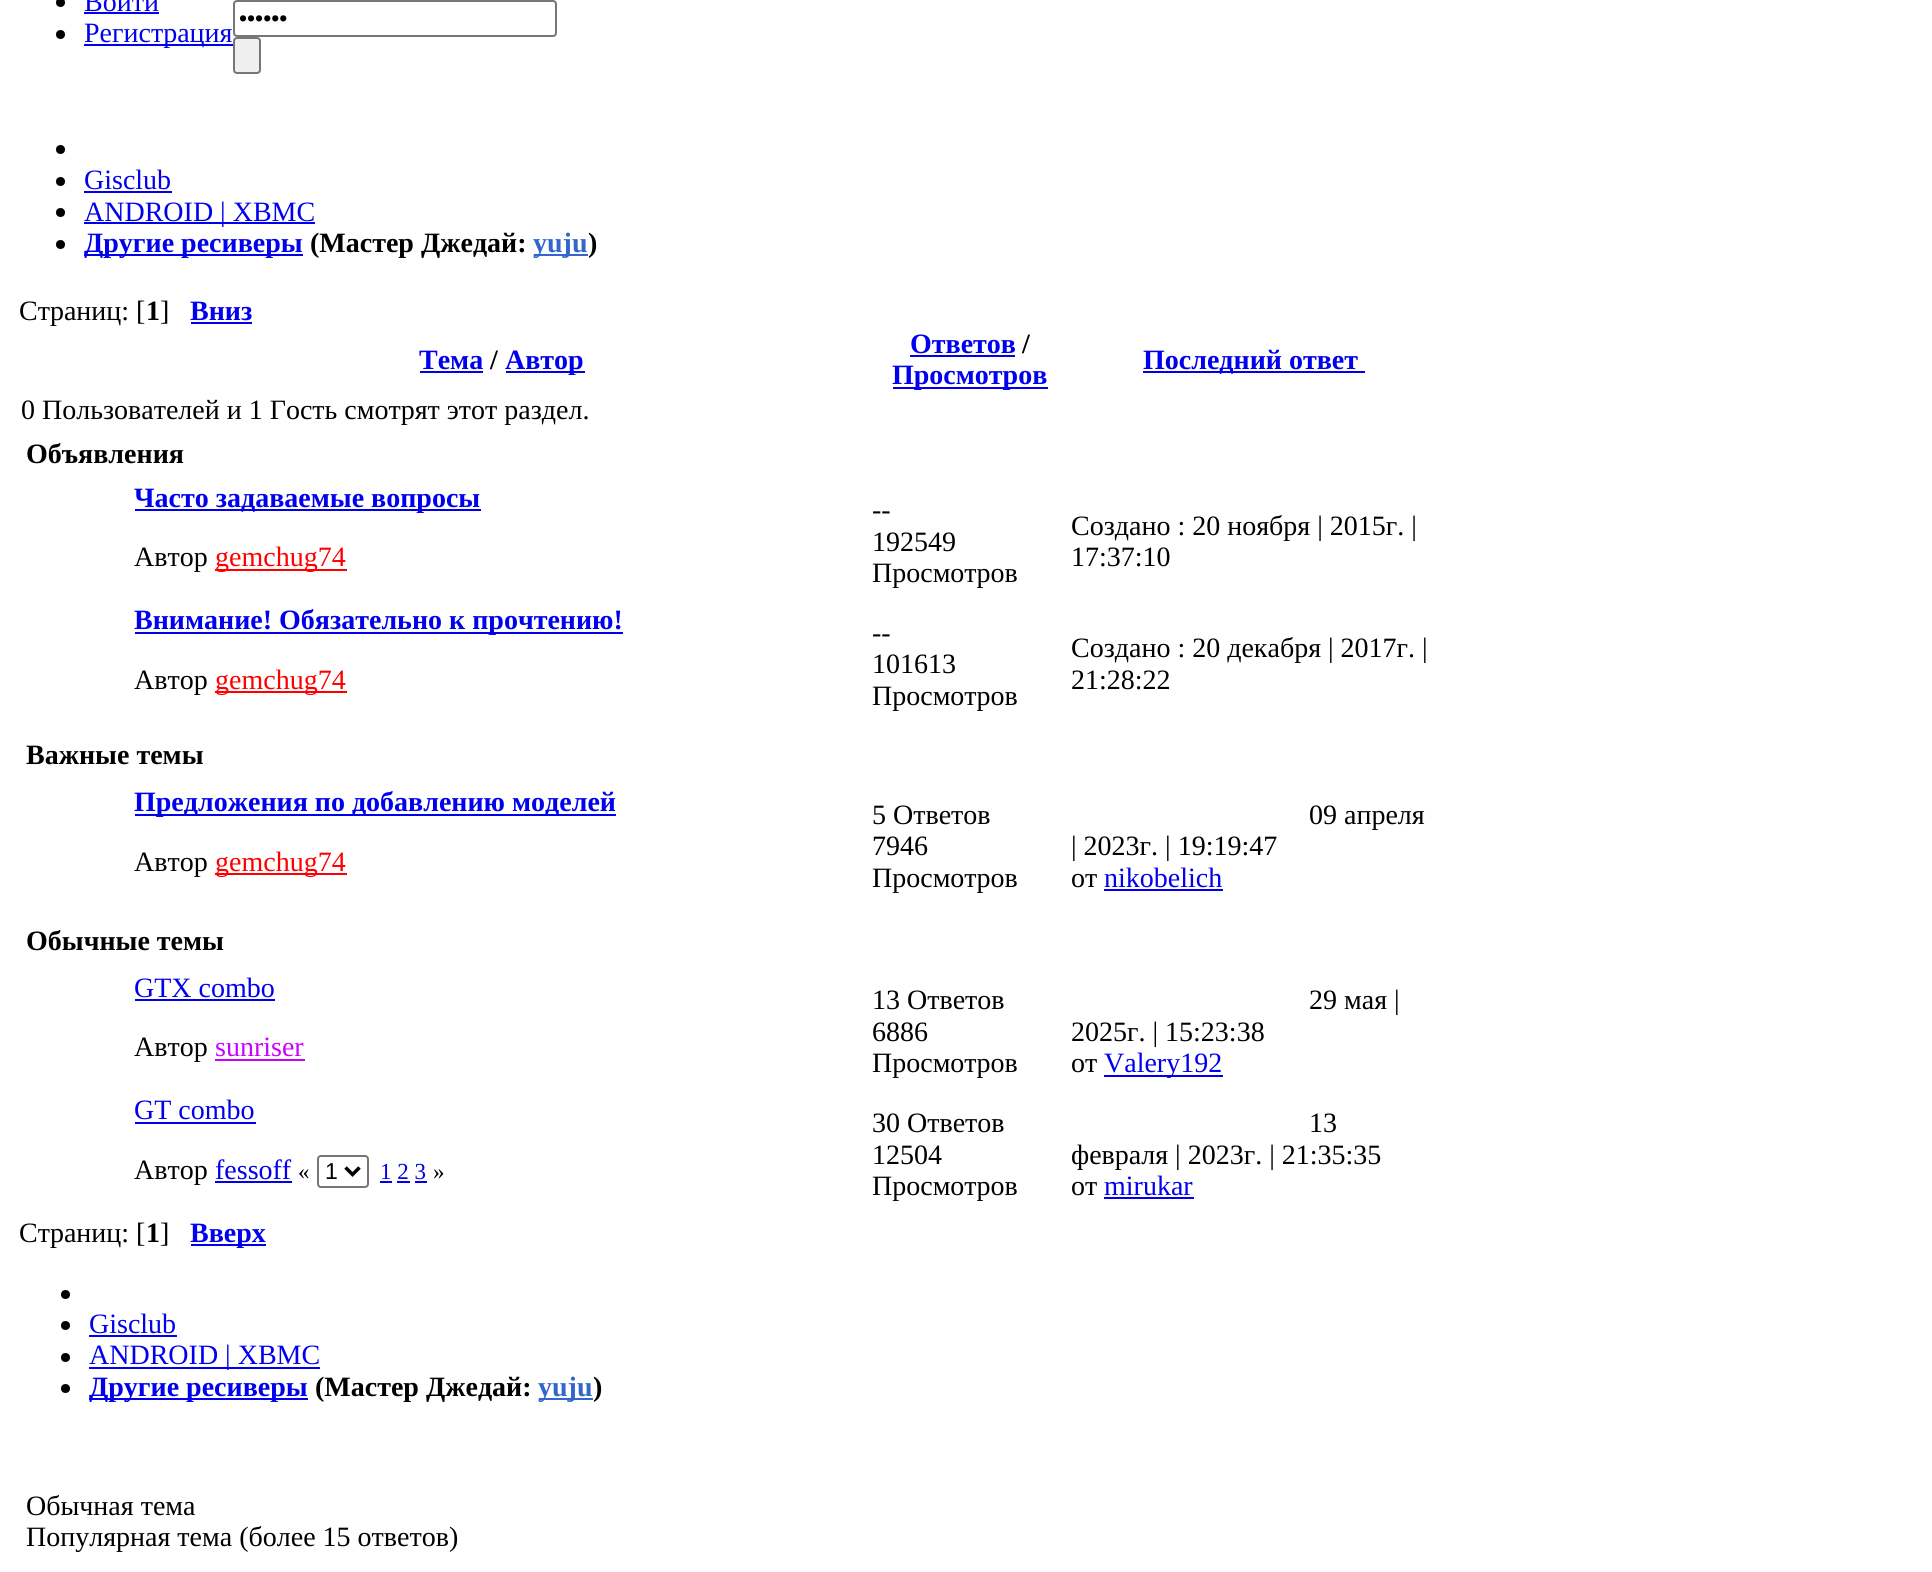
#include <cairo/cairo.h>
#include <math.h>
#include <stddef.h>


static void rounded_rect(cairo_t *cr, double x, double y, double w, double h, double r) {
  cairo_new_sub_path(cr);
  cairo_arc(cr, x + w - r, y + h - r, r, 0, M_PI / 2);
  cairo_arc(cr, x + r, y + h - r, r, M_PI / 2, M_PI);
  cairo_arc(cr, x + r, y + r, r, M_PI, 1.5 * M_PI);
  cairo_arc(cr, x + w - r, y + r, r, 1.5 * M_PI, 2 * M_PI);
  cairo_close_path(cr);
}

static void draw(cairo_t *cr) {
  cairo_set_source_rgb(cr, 1, 1, 1);
  cairo_paint(cr);
  cairo_set_source_rgb(cr, 0, 0, 0);
  cairo_arc(cr, 60.5, 2.5, 4.5, 0, 2 * M_PI);
  cairo_fill(cr);
  cairo_set_source_rgb(cr, 0, 0, 238 / 255.0);
  cairo_rectangle(cr, 84, 12, 75, 2);
  cairo_fill(cr);
  cairo_set_source_rgb(cr, 0, 0, 0);
  cairo_arc(cr, 60.5, 34.5, 4.5, 0, 2 * M_PI);
  cairo_fill(cr);
  cairo_set_source_rgb(cr, 0, 0, 238 / 255.0);
  cairo_rectangle(cr, 84, 44, 149, 2);
  cairo_fill(cr);
  rounded_rect(cr, 234, 1, 322, 35, 3);
  cairo_set_source_rgb(cr, 118 / 255.0, 118 / 255.0, 118 / 255.0);
  cairo_stroke(cr);
  cairo_set_source_rgb(cr, 239 / 255.0, 239 / 255.0, 239 / 255.0);
  rounded_rect(cr, 234, 38, 26, 35, 3);
  cairo_fill_preserve(cr);
  cairo_set_source_rgb(cr, 118 / 255.0, 118 / 255.0, 118 / 255.0);
  cairo_stroke(cr);
  cairo_set_source_rgb(cr, 0, 0, 0);
  cairo_arc(cr, 60.5, 149.5, 4.5, 0, 2 * M_PI);
  cairo_fill(cr);
  cairo_arc(cr, 60.5, 181.5, 4.5, 0, 2 * M_PI);
  cairo_fill(cr);
  cairo_set_source_rgb(cr, 0, 0, 238 / 255.0);
  cairo_rectangle(cr, 84, 191, 88, 2);
  cairo_fill(cr);
  cairo_set_source_rgb(cr, 0, 0, 0);
  cairo_arc(cr, 60.5, 212.5, 4.5, 0, 2 * M_PI);
  cairo_fill(cr);
  cairo_set_source_rgb(cr, 0, 0, 238 / 255.0);
  cairo_rectangle(cr, 84, 222, 231, 2);
  cairo_fill(cr);
  cairo_set_source_rgb(cr, 0, 0, 0);
  cairo_arc(cr, 60.5, 244.5, 4.5, 0, 2 * M_PI);
  cairo_fill(cr);
  cairo_set_source_rgb(cr, 0, 0, 238 / 255.0);
  cairo_rectangle(cr, 84, 254, 219, 2);
  cairo_fill(cr);
  cairo_set_source_rgb(cr, 51 / 255.0, 102 / 255.0, 204 / 255.0);
  cairo_rectangle(cr, 534, 254, 54, 2);
  cairo_fill(cr);
  cairo_set_source_rgb(cr, 0, 0, 238 / 255.0);
  cairo_rectangle(cr, 191, 322, 61, 2);
  cairo_fill(cr);
  cairo_rectangle(cr, 420, 371, 63, 2);
  cairo_fill(cr);
  cairo_rectangle(cr, 506, 371, 79, 2);
  cairo_fill(cr);
  cairo_rectangle(cr, 910, 355, 105, 2);
  cairo_fill(cr);
  cairo_rectangle(cr, 893, 387, 155, 2);
  cairo_fill(cr);
  cairo_rectangle(cr, 1143, 371, 222, 2);
  cairo_fill(cr);
  cairo_rectangle(cr, 135, 509, 346, 2);
  cairo_fill(cr);
  cairo_set_source_rgb(cr, 1, 0, 0);
  cairo_rectangle(cr, 215, 569, 132, 2);
  cairo_fill(cr);
  cairo_set_source_rgb(cr, 0, 0, 238 / 255.0);
  cairo_rectangle(cr, 135, 632, 488, 2);
  cairo_fill(cr);
  cairo_set_source_rgb(cr, 1, 0, 0);
  cairo_rectangle(cr, 215, 691, 132, 2);
  cairo_fill(cr);
  cairo_set_source_rgb(cr, 0, 0, 238 / 255.0);
  cairo_rectangle(cr, 135, 814, 481, 2);
  cairo_fill(cr);
  cairo_set_source_rgb(cr, 1, 0, 0);
  cairo_rectangle(cr, 215, 873, 132, 2);
  cairo_fill(cr);
  cairo_set_source_rgb(cr, 0, 0, 238 / 255.0);
  cairo_rectangle(cr, 1104, 889, 119, 2);
  cairo_fill(cr);
  cairo_rectangle(cr, 135, 999, 140, 2);
  cairo_fill(cr);
  cairo_set_source_rgb(cr, 204 / 255.0, 0, 1);
  cairo_rectangle(cr, 215, 1059, 90, 2);
  cairo_fill(cr);
  cairo_set_source_rgb(cr, 0, 0, 238 / 255.0);
  cairo_rectangle(cr, 1104, 1075, 119, 2);
  cairo_fill(cr);
  cairo_rectangle(cr, 135, 1122, 121, 2);
  cairo_fill(cr);
  cairo_rectangle(cr, 215, 1181, 77, 2);
  cairo_fill(cr);
  rounded_rect(cr, 318, 1156, 50, 31, 3);
  cairo_set_source_rgb(cr, 118 / 255.0, 118 / 255.0, 118 / 255.0);
  cairo_stroke(cr);
  cairo_new_path(cr);
  cairo_move_to(cr, 345.5, 1167.5);
  cairo_line_to(cr, 352.5, 1174.5);
  cairo_line_to(cr, 359.5, 1167.5);
  cairo_set_source_rgb(cr, 0, 0, 0);
  cairo_set_line_width(cr, 3.5);
  cairo_stroke(cr);
  cairo_set_source_rgb(cr, 0, 0, 238 / 255.0);
  cairo_rectangle(cr, 380, 1181, 12, 2);
  cairo_fill(cr);
  cairo_rectangle(cr, 397, 1181, 13, 2);
  cairo_fill(cr);
  cairo_rectangle(cr, 415, 1181, 12, 2);
  cairo_fill(cr);
  cairo_rectangle(cr, 1104, 1197, 90, 2);
  cairo_fill(cr);
  cairo_rectangle(cr, 191, 1244, 75, 2);
  cairo_fill(cr);
  cairo_set_source_rgb(cr, 0, 0, 0);
  cairo_arc(cr, 65.5, 1294.5, 4.5, 0, 2 * M_PI);
  cairo_fill(cr);
  cairo_arc(cr, 65.5, 1325.5, 4.5, 0, 2 * M_PI);
  cairo_fill(cr);
  cairo_set_source_rgb(cr, 0, 0, 238 / 255.0);
  cairo_rectangle(cr, 89, 1335, 88, 2);
  cairo_fill(cr);
  cairo_set_source_rgb(cr, 0, 0, 0);
  cairo_arc(cr, 65.5, 1357.5, 4.5, 0, 2 * M_PI);
  cairo_fill(cr);
  cairo_set_source_rgb(cr, 0, 0, 238 / 255.0);
  cairo_rectangle(cr, 89, 1367, 231, 2);
  cairo_fill(cr);
  cairo_set_source_rgb(cr, 0, 0, 0);
  cairo_arc(cr, 65.5, 1388.5, 4.5, 0, 2 * M_PI);
  cairo_fill(cr);
  cairo_set_source_rgb(cr, 0, 0, 238 / 255.0);
  cairo_rectangle(cr, 89, 1398, 219, 2);
  cairo_fill(cr);
  cairo_set_source_rgb(cr, 51 / 255.0, 102 / 255.0, 204 / 255.0);
  cairo_rectangle(cr, 539, 1398, 54, 2);
  cairo_fill(cr);
  cairo_select_font_face(cr, "Liberation Serif", CAIRO_FONT_SLANT_NORMAL, CAIRO_FONT_WEIGHT_NORMAL);
  cairo_set_font_size(cr, 28);
  cairo_set_source_rgb(cr, 0, 0, 238 / 255.0);
  cairo_move_to(cr, 84, 11);
  cairo_show_text(cr, "Войти");
  cairo_move_to(cr, 84, 42);
  cairo_show_text(cr, "Регистрация");
  cairo_select_font_face(cr, "Liberation Sans", CAIRO_FONT_SLANT_NORMAL, CAIRO_FONT_WEIGHT_NORMAL);
  cairo_set_font_size(cr, 23);
  cairo_set_source_rgb(cr, 0, 0, 0);
  cairo_move_to(cr, 239, 26);
  cairo_show_text(cr, "••••••");
  cairo_select_font_face(cr, "Liberation Serif", CAIRO_FONT_SLANT_NORMAL, CAIRO_FONT_WEIGHT_NORMAL);
  cairo_set_font_size(cr, 28);
  cairo_set_source_rgb(cr, 0, 0, 238 / 255.0);
  cairo_move_to(cr, 84, 189);
  cairo_show_text(cr, "Gisclub");
  cairo_move_to(cr, 84, 221);
  cairo_show_text(cr, "ANDROID | XBMC");
  cairo_select_font_face(cr, "Liberation Serif", CAIRO_FONT_SLANT_NORMAL, CAIRO_FONT_WEIGHT_BOLD);
  cairo_move_to(cr, 84, 252);
  cairo_show_text(cr, "Другие ресиверы");
  cairo_set_source_rgb(cr, 0, 0, 0);
  cairo_move_to(cr, 310, 252);
  cairo_show_text(cr, "(Мастер Джедай:");
  cairo_set_source_rgb(cr, 51 / 255.0, 102 / 255.0, 204 / 255.0);
  cairo_move_to(cr, 533, 252);
  cairo_show_text(cr, "yuju");
  cairo_set_source_rgb(cr, 0, 0, 0);
  cairo_move_to(cr, 588, 252);
  cairo_show_text(cr, ")");
  cairo_select_font_face(cr, "Liberation Serif", CAIRO_FONT_SLANT_NORMAL, CAIRO_FONT_WEIGHT_NORMAL);
  cairo_move_to(cr, 19, 320);
  cairo_show_text(cr, "Страниц: [");
  cairo_select_font_face(cr, "Liberation Serif", CAIRO_FONT_SLANT_NORMAL, CAIRO_FONT_WEIGHT_BOLD);
  cairo_move_to(cr, 146, 320);
  cairo_show_text(cr, "1");
  cairo_select_font_face(cr, "Liberation Serif", CAIRO_FONT_SLANT_NORMAL, CAIRO_FONT_WEIGHT_NORMAL);
  cairo_move_to(cr, 160, 320);
  cairo_show_text(cr, "]");
  cairo_select_font_face(cr, "Liberation Serif", CAIRO_FONT_SLANT_NORMAL, CAIRO_FONT_WEIGHT_BOLD);
  cairo_set_source_rgb(cr, 0, 0, 238 / 255.0);
  cairo_move_to(cr, 190, 320);
  cairo_show_text(cr, "Вниз");
  cairo_move_to(cr, 419, 369);
  cairo_show_text(cr, "Тема");
  cairo_set_source_rgb(cr, 0, 0, 0);
  cairo_move_to(cr, 490, 369);
  cairo_show_text(cr, "/");
  cairo_set_source_rgb(cr, 0, 0, 238 / 255.0);
  cairo_move_to(cr, 505, 369);
  cairo_show_text(cr, "Автор");
  cairo_move_to(cr, 910, 353);
  cairo_show_text(cr, "Ответов");
  cairo_set_source_rgb(cr, 0, 0, 0);
  cairo_move_to(cr, 1022, 353);
  cairo_show_text(cr, "/");
  cairo_set_source_rgb(cr, 0, 0, 238 / 255.0);
  cairo_move_to(cr, 892, 384);
  cairo_show_text(cr, "Просмотров");
  cairo_move_to(cr, 1143, 369);
  cairo_show_text(cr, "Последний ответ");
  cairo_select_font_face(cr, "Liberation Serif", CAIRO_FONT_SLANT_NORMAL, CAIRO_FONT_WEIGHT_NORMAL);
  cairo_set_source_rgb(cr, 0, 0, 0);
  cairo_move_to(cr, 21, 419);
  cairo_show_text(cr, "0 Пользователей и 1 Гость смотрят этот раздел.");
  cairo_select_font_face(cr, "Liberation Serif", CAIRO_FONT_SLANT_NORMAL, CAIRO_FONT_WEIGHT_BOLD);
  cairo_move_to(cr, 26, 463);
  cairo_show_text(cr, "Объявления");
  cairo_set_source_rgb(cr, 0, 0, 238 / 255.0);
  cairo_move_to(cr, 134, 507);
  cairo_show_text(cr, "Часто задаваемые вопросы");
  cairo_select_font_face(cr, "Liberation Serif", CAIRO_FONT_SLANT_NORMAL, CAIRO_FONT_WEIGHT_NORMAL);
  cairo_set_source_rgb(cr, 0, 0, 0);
  cairo_move_to(cr, 134, 566);
  cairo_show_text(cr, "Автор");
  cairo_set_source_rgb(cr, 1, 0, 0);
  cairo_move_to(cr, 215, 566);
  cairo_show_text(cr, "gemchug74");
  cairo_set_source_rgb(cr, 0, 0, 0);
  cairo_move_to(cr, 872, 519);
  cairo_show_text(cr, "--");
  cairo_move_to(cr, 872, 551);
  cairo_show_text(cr, "192549");
  cairo_move_to(cr, 872, 582);
  cairo_show_text(cr, "Просмотров");
  cairo_move_to(cr, 1071, 535);
  cairo_show_text(cr, "Создано : 20 ноября | 2015г. |");
  cairo_move_to(cr, 1071, 566);
  cairo_show_text(cr, "17:37:10");
  cairo_select_font_face(cr, "Liberation Serif", CAIRO_FONT_SLANT_NORMAL, CAIRO_FONT_WEIGHT_BOLD);
  cairo_set_source_rgb(cr, 0, 0, 238 / 255.0);
  cairo_move_to(cr, 134, 629);
  cairo_show_text(cr, "Внимание! Обязательно к прочтению!");
  cairo_select_font_face(cr, "Liberation Serif", CAIRO_FONT_SLANT_NORMAL, CAIRO_FONT_WEIGHT_NORMAL);
  cairo_set_source_rgb(cr, 0, 0, 0);
  cairo_move_to(cr, 134, 689);
  cairo_show_text(cr, "Автор");
  cairo_set_source_rgb(cr, 1, 0, 0);
  cairo_move_to(cr, 215, 689);
  cairo_show_text(cr, "gemchug74");
  cairo_set_source_rgb(cr, 0, 0, 0);
  cairo_move_to(cr, 872, 642);
  cairo_show_text(cr, "--");
  cairo_move_to(cr, 872, 673);
  cairo_show_text(cr, "101613");
  cairo_move_to(cr, 872, 705);
  cairo_show_text(cr, "Просмотров");
  cairo_move_to(cr, 1071, 657);
  cairo_show_text(cr, "Создано : 20 декабря | 2017г. |");
  cairo_move_to(cr, 1071, 689);
  cairo_show_text(cr, "21:28:22");
  cairo_select_font_face(cr, "Liberation Serif", CAIRO_FONT_SLANT_NORMAL, CAIRO_FONT_WEIGHT_BOLD);
  cairo_move_to(cr, 26, 764);
  cairo_show_text(cr, "Важные темы");
  cairo_set_source_rgb(cr, 0, 0, 238 / 255.0);
  cairo_move_to(cr, 134, 811);
  cairo_show_text(cr, "Предложения по добавлению моделей");
  cairo_select_font_face(cr, "Liberation Serif", CAIRO_FONT_SLANT_NORMAL, CAIRO_FONT_WEIGHT_NORMAL);
  cairo_set_source_rgb(cr, 0, 0, 0);
  cairo_move_to(cr, 134, 871);
  cairo_show_text(cr, "Автор");
  cairo_set_source_rgb(cr, 1, 0, 0);
  cairo_move_to(cr, 215, 871);
  cairo_show_text(cr, "gemchug74");
  cairo_set_source_rgb(cr, 0, 0, 0);
  cairo_move_to(cr, 872, 824);
  cairo_show_text(cr, "5 Ответов");
  cairo_move_to(cr, 872, 855);
  cairo_show_text(cr, "7946");
  cairo_move_to(cr, 872, 887);
  cairo_show_text(cr, "Просмотров");
  cairo_move_to(cr, 1309, 824);
  cairo_show_text(cr, "09 апреля");
  cairo_move_to(cr, 1071, 855);
  cairo_show_text(cr, "| 2023г. | 19:19:47");
  cairo_move_to(cr, 1071, 887);
  cairo_show_text(cr, "от");
  cairo_set_source_rgb(cr, 0, 0, 238 / 255.0);
  cairo_move_to(cr, 1104, 887);
  cairo_show_text(cr, "nikobelich");
  cairo_select_font_face(cr, "Liberation Serif", CAIRO_FONT_SLANT_NORMAL, CAIRO_FONT_WEIGHT_BOLD);
  cairo_set_source_rgb(cr, 0, 0, 0);
  cairo_move_to(cr, 26, 950);
  cairo_show_text(cr, "Обычные темы");
  cairo_select_font_face(cr, "Liberation Serif", CAIRO_FONT_SLANT_NORMAL, CAIRO_FONT_WEIGHT_NORMAL);
  cairo_set_source_rgb(cr, 0, 0, 238 / 255.0);
  cairo_move_to(cr, 134, 997);
  cairo_show_text(cr, "GTX combo");
  cairo_set_source_rgb(cr, 0, 0, 0);
  cairo_move_to(cr, 134, 1056);
  cairo_show_text(cr, "Автор");
  cairo_set_source_rgb(cr, 204 / 255.0, 0, 1);
  cairo_move_to(cr, 215, 1056);
  cairo_show_text(cr, "sunriser");
  cairo_set_source_rgb(cr, 0, 0, 0);
  cairo_move_to(cr, 872, 1009);
  cairo_show_text(cr, "13 Ответов");
  cairo_move_to(cr, 872, 1041);
  cairo_show_text(cr, "6886");
  cairo_move_to(cr, 872, 1072);
  cairo_show_text(cr, "Просмотров");
  cairo_move_to(cr, 1309, 1009);
  cairo_show_text(cr, "29 мая |");
  cairo_move_to(cr, 1071, 1041);
  cairo_show_text(cr, "2025г. | 15:23:38");
  cairo_move_to(cr, 1071, 1072);
  cairo_show_text(cr, "от");
  cairo_set_source_rgb(cr, 0, 0, 238 / 255.0);
  cairo_move_to(cr, 1104, 1072);
  cairo_show_text(cr, "Valery192");
  cairo_move_to(cr, 134, 1119);
  cairo_show_text(cr, "GT combo");
  cairo_set_source_rgb(cr, 0, 0, 0);
  cairo_move_to(cr, 134, 1179);
  cairo_show_text(cr, "Автор");
  cairo_set_source_rgb(cr, 0, 0, 238 / 255.0);
  cairo_move_to(cr, 215, 1179);
  cairo_show_text(cr, "fessoff");
  cairo_set_font_size(cr, 23);
  cairo_set_source_rgb(cr, 0, 0, 0);
  cairo_move_to(cr, 298, 1179);
  cairo_show_text(cr, "«");
  cairo_select_font_face(cr, "Liberation Sans", CAIRO_FONT_SLANT_NORMAL, CAIRO_FONT_WEIGHT_NORMAL);
  cairo_move_to(cr, 325, 1179);
  cairo_show_text(cr, "1");
  cairo_select_font_face(cr, "Liberation Serif", CAIRO_FONT_SLANT_NORMAL, CAIRO_FONT_WEIGHT_NORMAL);
  cairo_set_source_rgb(cr, 0, 0, 238 / 255.0);
  cairo_move_to(cr, 380, 1179);
  cairo_show_text(cr, "1 2 3");
  cairo_set_source_rgb(cr, 0, 0, 0);
  cairo_move_to(cr, 433, 1179);
  cairo_show_text(cr, "»");
  cairo_set_font_size(cr, 28);
  cairo_move_to(cr, 872, 1132);
  cairo_show_text(cr, "30 Ответов");
  cairo_move_to(cr, 872, 1164);
  cairo_show_text(cr, "12504");
  cairo_move_to(cr, 872, 1195);
  cairo_show_text(cr, "Просмотров");
  cairo_move_to(cr, 1309, 1132);
  cairo_show_text(cr, "13");
  cairo_move_to(cr, 1071, 1164);
  cairo_show_text(cr, "февраля | 2023г. | 21:35:35");
  cairo_move_to(cr, 1071, 1195);
  cairo_show_text(cr, "от");
  cairo_set_source_rgb(cr, 0, 0, 238 / 255.0);
  cairo_move_to(cr, 1104, 1195);
  cairo_show_text(cr, "mirukar");
  cairo_set_source_rgb(cr, 0, 0, 0);
  cairo_move_to(cr, 19, 1242);
  cairo_show_text(cr, "Страниц: [");
  cairo_select_font_face(cr, "Liberation Serif", CAIRO_FONT_SLANT_NORMAL, CAIRO_FONT_WEIGHT_BOLD);
  cairo_move_to(cr, 146, 1242);
  cairo_show_text(cr, "1");
  cairo_select_font_face(cr, "Liberation Serif", CAIRO_FONT_SLANT_NORMAL, CAIRO_FONT_WEIGHT_NORMAL);
  cairo_move_to(cr, 160, 1242);
  cairo_show_text(cr, "]");
  cairo_select_font_face(cr, "Liberation Serif", CAIRO_FONT_SLANT_NORMAL, CAIRO_FONT_WEIGHT_BOLD);
  cairo_set_source_rgb(cr, 0, 0, 238 / 255.0);
  cairo_move_to(cr, 190, 1242);
  cairo_show_text(cr, "Вверх");
  cairo_select_font_face(cr, "Liberation Serif", CAIRO_FONT_SLANT_NORMAL, CAIRO_FONT_WEIGHT_NORMAL);
  cairo_move_to(cr, 89, 1333);
  cairo_show_text(cr, "Gisclub");
  cairo_move_to(cr, 89, 1364);
  cairo_show_text(cr, "ANDROID | XBMC");
  cairo_select_font_face(cr, "Liberation Serif", CAIRO_FONT_SLANT_NORMAL, CAIRO_FONT_WEIGHT_BOLD);
  cairo_move_to(cr, 89, 1396);
  cairo_show_text(cr, "Другие ресиверы");
  cairo_set_source_rgb(cr, 0, 0, 0);
  cairo_move_to(cr, 315, 1396);
  cairo_show_text(cr, "(Мастер Джедай:");
  cairo_set_source_rgb(cr, 51 / 255.0, 102 / 255.0, 204 / 255.0);
  cairo_move_to(cr, 538, 1396);
  cairo_show_text(cr, "yuju");
  cairo_set_source_rgb(cr, 0, 0, 0);
  cairo_move_to(cr, 593, 1396);
  cairo_show_text(cr, ")");
  cairo_select_font_face(cr, "Liberation Serif", CAIRO_FONT_SLANT_NORMAL, CAIRO_FONT_WEIGHT_NORMAL);
  cairo_move_to(cr, 26, 1515);
  cairo_show_text(cr, "Обычная тема");
  cairo_move_to(cr, 26, 1546);
  cairo_show_text(cr, "Популярная тема (более 15 ответов)");
}

int main(void) {
  cairo_surface_t *surface = cairo_image_surface_create(CAIRO_FORMAT_RGB24, 1932, 1572);
  cairo_t *cr = cairo_create(surface);
  cairo_font_options_t *options = cairo_font_options_create();
  cairo_font_options_set_hint_metrics(options, CAIRO_HINT_METRICS_OFF);
  cairo_font_options_set_hint_style(options, CAIRO_HINT_STYLE_NONE);
  cairo_set_font_options(cr, options);
  cairo_set_miter_limit(cr, 4);
  draw(cr);
  cairo_surface_write_to_png(surface, "out.png");
  cairo_font_options_destroy(options);
  cairo_destroy(cr);
  cairo_surface_destroy(surface);
  return 0;
}
